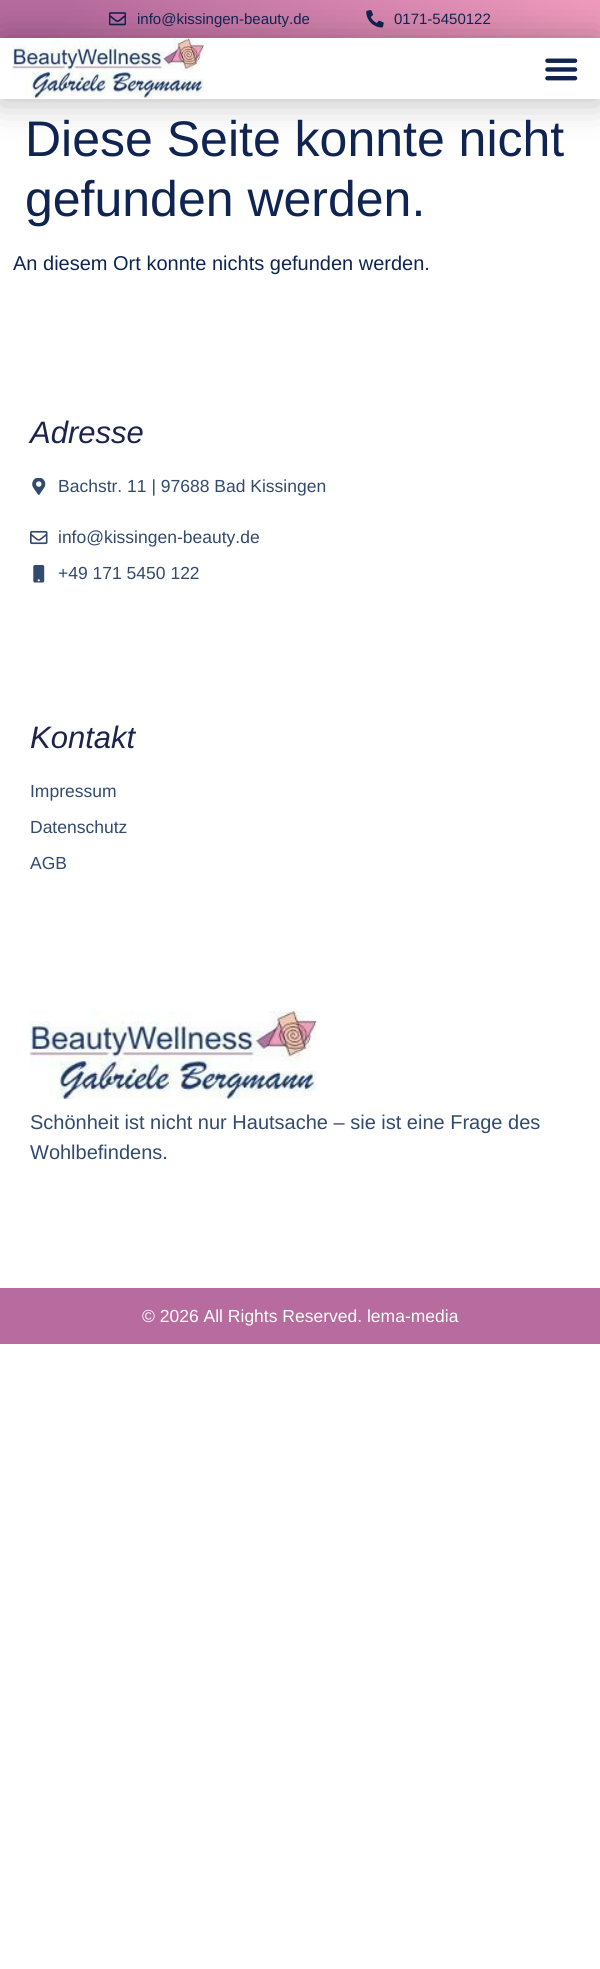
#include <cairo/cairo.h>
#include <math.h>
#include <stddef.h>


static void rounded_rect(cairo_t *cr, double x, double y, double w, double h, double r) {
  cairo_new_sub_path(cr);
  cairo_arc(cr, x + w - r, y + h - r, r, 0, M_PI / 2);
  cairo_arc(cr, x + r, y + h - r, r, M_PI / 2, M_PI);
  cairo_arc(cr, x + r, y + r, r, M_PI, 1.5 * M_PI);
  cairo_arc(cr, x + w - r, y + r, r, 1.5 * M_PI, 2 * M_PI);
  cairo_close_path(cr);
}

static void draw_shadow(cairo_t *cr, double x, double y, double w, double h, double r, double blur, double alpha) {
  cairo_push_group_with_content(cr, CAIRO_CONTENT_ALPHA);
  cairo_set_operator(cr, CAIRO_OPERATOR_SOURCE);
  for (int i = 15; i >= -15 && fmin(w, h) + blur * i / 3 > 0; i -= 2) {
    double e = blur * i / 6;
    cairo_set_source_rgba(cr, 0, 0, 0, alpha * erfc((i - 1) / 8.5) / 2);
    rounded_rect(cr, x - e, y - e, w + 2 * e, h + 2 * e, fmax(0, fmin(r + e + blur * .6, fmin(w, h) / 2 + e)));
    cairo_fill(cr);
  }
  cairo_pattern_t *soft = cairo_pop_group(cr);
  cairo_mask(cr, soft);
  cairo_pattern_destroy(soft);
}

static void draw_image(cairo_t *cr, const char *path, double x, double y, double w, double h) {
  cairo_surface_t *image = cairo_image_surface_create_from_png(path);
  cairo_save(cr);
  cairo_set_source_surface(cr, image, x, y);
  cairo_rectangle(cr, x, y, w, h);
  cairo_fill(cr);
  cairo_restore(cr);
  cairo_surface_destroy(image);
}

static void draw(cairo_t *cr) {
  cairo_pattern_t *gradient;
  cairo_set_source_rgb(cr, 1, 1, 1);
  cairo_paint(cr);
  gradient = cairo_pattern_create_linear(67, -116, 533, 153);
  cairo_pattern_add_color_stop_rgba(gradient, 0.12, 183 / 255.0, 107 / 255.0, 159 / 255.0, 1);
  cairo_pattern_add_color_stop_rgba(gradient, 1, 242 / 255.0, 157 / 255.0, 190 / 255.0, 1);
  cairo_set_source(cr, gradient);
  cairo_pattern_destroy(gradient);
  cairo_rectangle(cr, 0, 0, 600, 38);
  cairo_fill(cr);
  draw_image(cr, "images/3.png", 109, 12, 17, 14);
  draw_image(cr, "images/4.png", 366, 10, 18, 18);
  cairo_set_source_rgb(cr, 0, 0, 0);
  draw_shadow(cr, 0, 38, 600, 61, 0, 19, 0.3);
  cairo_set_source_rgb(cr, 1, 1, 1);
  cairo_rectangle(cr, 0, 38, 600, 61);
  cairo_fill(cr);
  draw_image(cr, "images/1.png", 12, 38, 192, 60);
  draw_image(cr, "images/2.png", 545, 58, 33, 23);
  draw_image(cr, "images/5.png", 32, 478, 14, 17);
  draw_image(cr, "images/6.png", 30, 530, 18, 15);
  draw_image(cr, "images/7.png", 33, 565, 12, 18);
  draw_image(cr, "images/8.png", 30, 1011, 287, 88);
  cairo_set_source_rgb(cr, 183 / 255.0, 107 / 255.0, 159 / 255.0);
  cairo_rectangle(cr, 0, 1288, 600, 56);
  cairo_fill(cr);
  cairo_select_font_face(cr, "Liberation Sans", CAIRO_FONT_SLANT_NORMAL, CAIRO_FONT_WEIGHT_NORMAL);
  cairo_set_font_size(cr, 15);
  cairo_set_source_rgb(cr, 15 / 255.0, 36 / 255.0, 81 / 255.0);
  cairo_move_to(cr, 137, 24);
  cairo_show_text(cr, "info@kissingen-beauty.de");
  cairo_move_to(cr, 394, 24);
  cairo_show_text(cr, "0171-5450122");
  cairo_set_font_size(cr, 50);
  cairo_move_to(cr, 25, 156);
  cairo_show_text(cr, "Diese Seite konnte nicht");
  cairo_move_to(cr, 25, 216);
  cairo_show_text(cr, "gefunden werden.");
  cairo_set_font_size(cr, 20);
  cairo_move_to(cr, 13, 270);
  cairo_show_text(cr, "An diesem Ort konnte nichts gefunden werden.");
  cairo_select_font_face(cr, "Liberation Sans", CAIRO_FONT_SLANT_ITALIC, CAIRO_FONT_WEIGHT_NORMAL);
  cairo_set_font_size(cr, 31);
  cairo_set_source_rgb(cr, 28 / 255.0, 36 / 255.0, 75 / 255.0);
  cairo_move_to(cr, 30, 443);
  cairo_show_text(cr, "Adresse");
  cairo_select_font_face(cr, "Liberation Sans", CAIRO_FONT_SLANT_NORMAL, CAIRO_FONT_WEIGHT_NORMAL);
  cairo_set_font_size(cr, 17.5);
  cairo_set_source_rgb(cr, 50 / 255.0, 74 / 255.0, 109 / 255.0);
  cairo_move_to(cr, 58, 492);
  cairo_show_text(cr, "Bachstr. 11 | 97688 Bad Kissingen");
  cairo_move_to(cr, 58, 543);
  cairo_show_text(cr, "info@kissingen-beauty.de");
  cairo_move_to(cr, 58, 579);
  cairo_show_text(cr, "+49 171 5450 122");
  cairo_select_font_face(cr, "Liberation Sans", CAIRO_FONT_SLANT_ITALIC, CAIRO_FONT_WEIGHT_NORMAL);
  cairo_set_font_size(cr, 31);
  cairo_set_source_rgb(cr, 28 / 255.0, 36 / 255.0, 75 / 255.0);
  cairo_move_to(cr, 30, 748);
  cairo_show_text(cr, "Kontakt");
  cairo_select_font_face(cr, "Liberation Sans", CAIRO_FONT_SLANT_NORMAL, CAIRO_FONT_WEIGHT_NORMAL);
  cairo_set_font_size(cr, 17.5);
  cairo_set_source_rgb(cr, 50 / 255.0, 74 / 255.0, 109 / 255.0);
  cairo_move_to(cr, 30, 797);
  cairo_show_text(cr, "Impressum");
  cairo_move_to(cr, 30, 833);
  cairo_show_text(cr, "Datenschutz");
  cairo_move_to(cr, 30, 869);
  cairo_show_text(cr, "AGB");
  cairo_set_font_size(cr, 20);
  cairo_move_to(cr, 30, 1129);
  cairo_show_text(cr, "Schönheit ist nicht nur Hautsache – sie ist eine Frage des");
  cairo_move_to(cr, 30, 1159);
  cairo_show_text(cr, "Wohlbefindens.");
  cairo_set_font_size(cr, 17.5);
  cairo_set_source_rgb(cr, 1, 1, 1);
  cairo_move_to(cr, 142, 1322);
  cairo_show_text(cr, "© 2026 All Rights Reserved. lema-media");
}

int main(void) {
  cairo_surface_t *surface = cairo_image_surface_create(CAIRO_FORMAT_RGB24, 600, 1969);
  cairo_t *cr = cairo_create(surface);
  cairo_font_options_t *options = cairo_font_options_create();
  cairo_font_options_set_hint_metrics(options, CAIRO_HINT_METRICS_OFF);
  cairo_font_options_set_hint_style(options, CAIRO_HINT_STYLE_NONE);
  cairo_set_font_options(cr, options);
  cairo_set_miter_limit(cr, 4);
  draw(cr);
  cairo_surface_write_to_png(surface, "out.png");
  cairo_font_options_destroy(options);
  cairo_destroy(cr);
  cairo_surface_destroy(surface);
  return 0;
}
